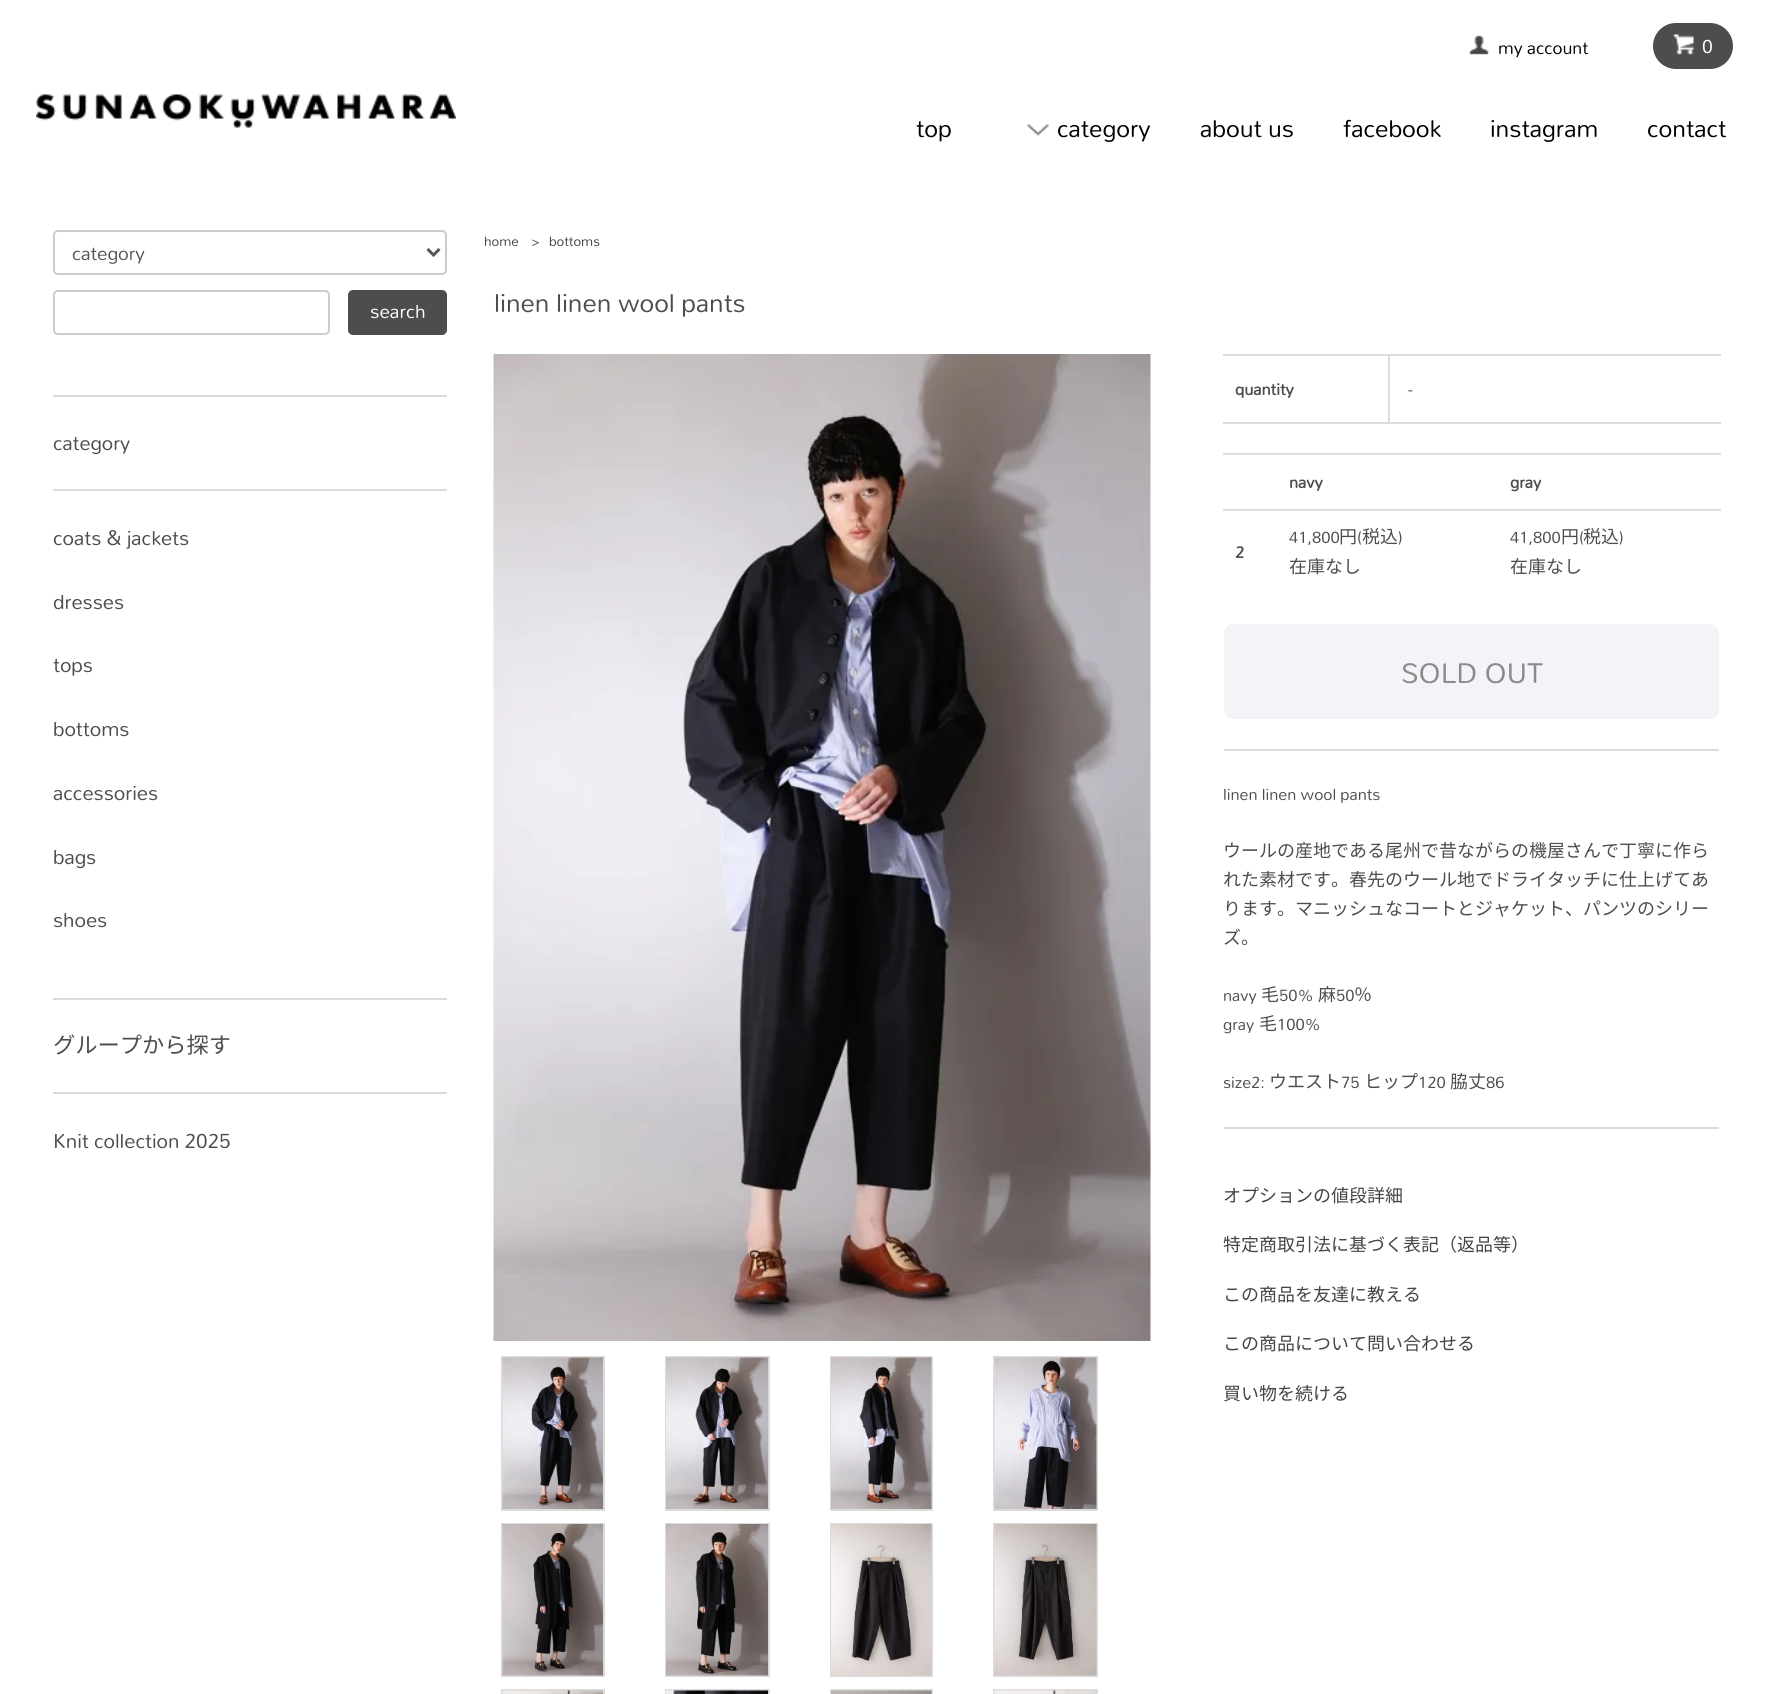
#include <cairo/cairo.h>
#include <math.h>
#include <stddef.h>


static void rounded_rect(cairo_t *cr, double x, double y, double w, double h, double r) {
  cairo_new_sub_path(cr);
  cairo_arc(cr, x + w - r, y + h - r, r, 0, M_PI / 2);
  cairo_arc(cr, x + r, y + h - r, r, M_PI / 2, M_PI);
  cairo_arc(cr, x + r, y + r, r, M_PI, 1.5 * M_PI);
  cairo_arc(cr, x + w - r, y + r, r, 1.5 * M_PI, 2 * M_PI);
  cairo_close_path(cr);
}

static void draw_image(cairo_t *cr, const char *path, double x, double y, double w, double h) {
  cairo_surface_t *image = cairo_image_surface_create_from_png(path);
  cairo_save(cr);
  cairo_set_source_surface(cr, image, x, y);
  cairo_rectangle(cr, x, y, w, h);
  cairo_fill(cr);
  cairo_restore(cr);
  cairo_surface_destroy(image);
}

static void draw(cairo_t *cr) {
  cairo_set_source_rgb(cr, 1, 1, 1);
  cairo_paint(cr);
  draw_image(cr, "images/1.png", 1469, 35, 20, 20);
  cairo_set_source_rgb(cr, 77 / 255.0, 77 / 255.0, 77 / 255.0);
  rounded_rect(cr, 1654, 24, 78, 44, 22);
  cairo_fill_preserve(cr);
  cairo_stroke(cr);
  draw_image(cr, "images/2.png", 1673, 34, 21, 21);
  draw_image(cr, "images/3.png", 36, 94, 420, 34);
  draw_image(cr, "images/4.png", 1027, 124, 22, 12);
  rounded_rect(cr, 54, 231, 392, 43, 4);
  cairo_set_source_rgb(cr, 204 / 255.0, 204 / 255.0, 204 / 255.0);
  cairo_stroke(cr);
  cairo_new_path(cr);
  cairo_move_to(cr, 427.5, 249);
  cairo_line_to(cr, 433.5, 255);
  cairo_line_to(cr, 439.5, 249);
  cairo_set_source_rgb(cr, 85 / 255.0, 85 / 255.0, 85 / 255.0);
  cairo_set_line_width(cr, 3);
  cairo_stroke(cr);
  rounded_rect(cr, 54, 291, 275, 43, 4);
  cairo_set_source_rgb(cr, 204 / 255.0, 204 / 255.0, 204 / 255.0);
  cairo_set_line_width(cr, 2);
  cairo_stroke(cr);
  cairo_set_source_rgb(cr, 77 / 255.0, 77 / 255.0, 77 / 255.0);
  rounded_rect(cr, 349, 291, 97, 43, 4);
  cairo_fill_preserve(cr);
  cairo_stroke(cr);
  cairo_set_source_rgb(cr, 219 / 255.0, 219 / 255.0, 219 / 255.0);
  cairo_rectangle(cr, 53, 395, 394, 2);
  cairo_fill(cr);
  cairo_rectangle(cr, 53, 489, 394, 2);
  cairo_fill(cr);
  cairo_rectangle(cr, 53, 998, 394, 2);
  cairo_fill(cr);
  cairo_rectangle(cr, 53, 1092, 394, 2);
  cairo_fill(cr);
  draw_image(cr, "images/5.png", 493, 354, 658, 987);
  cairo_rectangle(cr, 502, 1357, 102, 153);
  cairo_stroke(cr);
  draw_image(cr, "images/6.png", 502, 1357, 101, 152);
  cairo_rectangle(cr, 666, 1357, 103, 153);
  cairo_stroke(cr);
  draw_image(cr, "images/7.png", 666, 1357, 102, 152);
  cairo_rectangle(cr, 831, 1357, 101, 153);
  cairo_stroke(cr);
  draw_image(cr, "images/8.png", 831, 1357, 101, 152);
  cairo_rectangle(cr, 994, 1357, 103, 153);
  cairo_stroke(cr);
  draw_image(cr, "images/9.png", 994, 1357, 103, 152);
  cairo_rectangle(cr, 502, 1524, 102, 152);
  cairo_stroke(cr);
  draw_image(cr, "images/10.png", 502, 1524, 101, 152);
  cairo_rectangle(cr, 666, 1524, 103, 152);
  cairo_stroke(cr);
  draw_image(cr, "images/11.png", 666, 1524, 102, 152);
  cairo_rectangle(cr, 831, 1524, 101, 152);
  cairo_stroke(cr);
  draw_image(cr, "images/12.png", 831, 1524, 101, 152);
  cairo_rectangle(cr, 994, 1524, 103, 152);
  cairo_stroke(cr);
  draw_image(cr, "images/13.png", 994, 1524, 103, 152);
  cairo_rectangle(cr, 502, 1690, 102, 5);
  cairo_stroke(cr);
  draw_image(cr, "images/14.png", 502, 1690, 101, 4);
  cairo_rectangle(cr, 666, 1690, 103, 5);
  cairo_stroke(cr);
  draw_image(cr, "images/15.png", 666, 1690, 102, 4);
  cairo_rectangle(cr, 831, 1690, 101, 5);
  cairo_stroke(cr);
  draw_image(cr, "images/16.png", 831, 1690, 101, 4);
  cairo_rectangle(cr, 994, 1690, 103, 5);
  cairo_stroke(cr);
  draw_image(cr, "images/17.png", 994, 1690, 103, 4);
  cairo_set_source_rgb(cr, 221 / 255.0, 221 / 255.0, 221 / 255.0);
  cairo_rectangle(cr, 1223, 354, 498, 2);
  cairo_fill(cr);
  cairo_set_source_rgb(cr, 219 / 255.0, 219 / 255.0, 219 / 255.0);
  cairo_rectangle(cr, 1388, 422, 333, 2);
  cairo_fill(cr);
  cairo_rectangle(cr, 1388, 354, 2, 69);
  cairo_fill(cr);
  cairo_rectangle(cr, 1223, 422, 166, 2);
  cairo_fill(cr);
  cairo_set_source_rgb(cr, 221 / 255.0, 221 / 255.0, 221 / 255.0);
  cairo_rectangle(cr, 1223, 453, 498, 2);
  cairo_fill(cr);
  cairo_rectangle(cr, 1223, 509, 498, 2);
  cairo_fill(cr);
  cairo_set_source_rgb(cr, 243 / 255.0, 243 / 255.0, 248 / 255.0);
  rounded_rect(cr, 1225, 625, 493, 93, 8);
  cairo_fill_preserve(cr);
  cairo_stroke(cr);
  cairo_set_source_rgb(cr, 219 / 255.0, 219 / 255.0, 219 / 255.0);
  cairo_rectangle(cr, 1224, 749, 495, 2);
  cairo_fill(cr);
  cairo_rectangle(cr, 1224, 1127, 495, 2);
  cairo_fill(cr);
  cairo_select_font_face(cr, "Mallanna", CAIRO_FONT_SLANT_NORMAL, CAIRO_FONT_WEIGHT_NORMAL);
  cairo_set_font_size(cr, 19.5);
  cairo_set_source_rgb(cr, 0, 0, 0);
  cairo_move_to(cr, 1498, 54);
  cairo_show_text(cr, "my account");
  cairo_set_font_size(cr, 21);
  cairo_set_source_rgb(cr, 1, 1, 1);
  cairo_move_to(cr, 1702, 53);
  cairo_show_text(cr, "0");
  cairo_set_font_size(cr, 27);
  cairo_set_source_rgb(cr, 0, 0, 0);
  cairo_move_to(cr, 916, 137);
  cairo_show_text(cr, "top");
  cairo_move_to(cr, 1057, 137);
  cairo_show_text(cr, "category");
  cairo_move_to(cr, 1200, 137);
  cairo_show_text(cr, "about us");
  cairo_move_to(cr, 1343, 137);
  cairo_show_text(cr, "facebook");
  cairo_move_to(cr, 1490, 137);
  cairo_show_text(cr, "instagram");
  cairo_move_to(cr, 1647, 137);
  cairo_show_text(cr, "contact");
  cairo_set_font_size(cr, 21);
  cairo_set_source_rgb(cr, 85 / 255.0, 85 / 255.0, 85 / 255.0);
  cairo_move_to(cr, 72, 260);
  cairo_show_text(cr, "category");
  cairo_set_source_rgb(cr, 1, 1, 1);
  cairo_move_to(cr, 370, 318);
  cairo_show_text(cr, "search");
  cairo_set_font_size(cr, 22.25);
  cairo_set_source_rgb(cr, 77 / 255.0, 77 / 255.0, 77 / 255.0);
  cairo_move_to(cr, 53, 450);
  cairo_show_text(cr, "category");
  cairo_set_font_size(cr, 22.5);
  cairo_move_to(cr, 53, 545);
  cairo_show_text(cr, "coats & jackets");
  cairo_move_to(cr, 53, 609);
  cairo_show_text(cr, "dresses");
  cairo_move_to(cr, 53, 672);
  cairo_show_text(cr, "tops");
  cairo_move_to(cr, 53, 736);
  cairo_show_text(cr, "bottoms");
  cairo_move_to(cr, 53, 800);
  cairo_show_text(cr, "accessories");
  cairo_move_to(cr, 53, 864);
  cairo_show_text(cr, "bags");
  cairo_move_to(cr, 53, 927);
  cairo_show_text(cr, "shoes");
  cairo_select_font_face(cr, "Noto Sans JP", CAIRO_FONT_SLANT_NORMAL, CAIRO_FONT_WEIGHT_NORMAL);
  cairo_set_font_size(cr, 22.25);
  cairo_move_to(cr, 53, 1053);
  cairo_show_text(cr, "グループから探す");
  cairo_select_font_face(cr, "Mallanna", CAIRO_FONT_SLANT_NORMAL, CAIRO_FONT_WEIGHT_NORMAL);
  cairo_set_font_size(cr, 22.5);
  cairo_move_to(cr, 53, 1148);
  cairo_show_text(cr, "Knit collection 2025");
  cairo_set_font_size(cr, 15);
  cairo_set_source_rgb(cr, 68 / 255.0, 68 / 255.0, 68 / 255.0);
  cairo_move_to(cr, 484, 246);
  cairo_show_text(cr, "home");
  cairo_set_source_rgb(cr, 77 / 255.0, 77 / 255.0, 77 / 255.0);
  cairo_move_to(cr, 531, 246);
  cairo_show_text(cr, ">");
  cairo_set_source_rgb(cr, 68 / 255.0, 68 / 255.0, 68 / 255.0);
  cairo_move_to(cr, 549, 246);
  cairo_show_text(cr, "bottoms");
  cairo_set_font_size(cr, 28.75);
  cairo_set_source_rgb(cr, 77 / 255.0, 77 / 255.0, 77 / 255.0);
  cairo_move_to(cr, 494, 312);
  cairo_show_text(cr, "linen linen wool pants");
  cairo_select_font_face(cr, "Mallanna", CAIRO_FONT_SLANT_NORMAL, CAIRO_FONT_WEIGHT_BOLD);
  cairo_set_font_size(cr, 18);
  cairo_move_to(cr, 1235, 395);
  cairo_show_text(cr, "quantity");
  cairo_select_font_face(cr, "Mallanna", CAIRO_FONT_SLANT_NORMAL, CAIRO_FONT_WEIGHT_NORMAL);
  cairo_move_to(cr, 1408, 395);
  cairo_show_text(cr, "-");
  cairo_select_font_face(cr, "Mallanna", CAIRO_FONT_SLANT_NORMAL, CAIRO_FONT_WEIGHT_BOLD);
  cairo_move_to(cr, 1289, 488);
  cairo_show_text(cr, "navy");
  cairo_move_to(cr, 1510, 488);
  cairo_show_text(cr, "gray");
  cairo_move_to(cr, 1235, 558);
  cairo_show_text(cr, "2");
  cairo_select_font_face(cr, "Mallanna", CAIRO_FONT_SLANT_NORMAL, CAIRO_FONT_WEIGHT_NORMAL);
  cairo_move_to(cr, 1289, 543);
  cairo_show_text(cr, "41,800");
  cairo_select_font_face(cr, "Noto Sans JP", CAIRO_FONT_SLANT_NORMAL, CAIRO_FONT_WEIGHT_NORMAL);
  cairo_move_to(cr, 1339, 543);
  cairo_show_text(cr, "円");
  cairo_select_font_face(cr, "Mallanna", CAIRO_FONT_SLANT_NORMAL, CAIRO_FONT_WEIGHT_NORMAL);
  cairo_move_to(cr, 1357, 543);
  cairo_show_text(cr, "(");
  cairo_select_font_face(cr, "Noto Sans JP", CAIRO_FONT_SLANT_NORMAL, CAIRO_FONT_WEIGHT_NORMAL);
  cairo_move_to(cr, 1362, 543);
  cairo_show_text(cr, "税込");
  cairo_select_font_face(cr, "Mallanna", CAIRO_FONT_SLANT_NORMAL, CAIRO_FONT_WEIGHT_NORMAL);
  cairo_move_to(cr, 1398, 543);
  cairo_show_text(cr, ")");
  cairo_select_font_face(cr, "Noto Sans JP", CAIRO_FONT_SLANT_NORMAL, CAIRO_FONT_WEIGHT_NORMAL);
  cairo_move_to(cr, 1289, 573);
  cairo_show_text(cr, "在庫なし");
  cairo_select_font_face(cr, "Mallanna", CAIRO_FONT_SLANT_NORMAL, CAIRO_FONT_WEIGHT_NORMAL);
  cairo_move_to(cr, 1510, 543);
  cairo_show_text(cr, "41,800");
  cairo_select_font_face(cr, "Noto Sans JP", CAIRO_FONT_SLANT_NORMAL, CAIRO_FONT_WEIGHT_NORMAL);
  cairo_move_to(cr, 1561, 543);
  cairo_show_text(cr, "円");
  cairo_select_font_face(cr, "Mallanna", CAIRO_FONT_SLANT_NORMAL, CAIRO_FONT_WEIGHT_NORMAL);
  cairo_move_to(cr, 1579, 543);
  cairo_show_text(cr, "(");
  cairo_select_font_face(cr, "Noto Sans JP", CAIRO_FONT_SLANT_NORMAL, CAIRO_FONT_WEIGHT_NORMAL);
  cairo_move_to(cr, 1583, 543);
  cairo_show_text(cr, "税込");
  cairo_select_font_face(cr, "Mallanna", CAIRO_FONT_SLANT_NORMAL, CAIRO_FONT_WEIGHT_NORMAL);
  cairo_move_to(cr, 1619, 543);
  cairo_show_text(cr, ")");
  cairo_select_font_face(cr, "Noto Sans JP", CAIRO_FONT_SLANT_NORMAL, CAIRO_FONT_WEIGHT_NORMAL);
  cairo_move_to(cr, 1510, 573);
  cairo_show_text(cr, "在庫なし");
  cairo_select_font_face(cr, "Mallanna", CAIRO_FONT_SLANT_NORMAL, CAIRO_FONT_WEIGHT_NORMAL);
  cairo_set_font_size(cr, 31.5);
  cairo_set_source_rgb(cr, 139 / 255.0, 139 / 255.0, 139 / 255.0);
  cairo_move_to(cr, 1401, 683);
  cairo_show_text(cr, "SOLD OUT");
  cairo_set_font_size(cr, 18);
  cairo_set_source_rgb(cr, 77 / 255.0, 77 / 255.0, 77 / 255.0);
  cairo_move_to(cr, 1223, 800);
  cairo_show_text(cr, "linen linen wool pants");
  cairo_select_font_face(cr, "Noto Sans JP", CAIRO_FONT_SLANT_NORMAL, CAIRO_FONT_WEIGHT_NORMAL);
  cairo_move_to(cr, 1223, 857);
  cairo_show_text(cr, "ウールの産地である尾州で昔ながらの機屋さんで丁寧に作ら");
  cairo_move_to(cr, 1223, 886);
  cairo_show_text(cr, "れた素材です。春先のウール地でドライタッチに仕上げてあ");
  cairo_move_to(cr, 1223, 915);
  cairo_show_text(cr, "ります。マニッシュなコートとジャケット、パンツのシリー");
  cairo_move_to(cr, 1223, 944);
  cairo_show_text(cr, "ズ。");
  cairo_select_font_face(cr, "Mallanna", CAIRO_FONT_SLANT_NORMAL, CAIRO_FONT_WEIGHT_NORMAL);
  cairo_move_to(cr, 1223, 1001);
  cairo_show_text(cr, "navy");
  cairo_select_font_face(cr, "Noto Sans JP", CAIRO_FONT_SLANT_NORMAL, CAIRO_FONT_WEIGHT_NORMAL);
  cairo_move_to(cr, 1261, 1001);
  cairo_show_text(cr, "毛");
  cairo_select_font_face(cr, "Mallanna", CAIRO_FONT_SLANT_NORMAL, CAIRO_FONT_WEIGHT_NORMAL);
  cairo_move_to(cr, 1279, 1001);
  cairo_show_text(cr, "50%");
  cairo_select_font_face(cr, "Noto Sans JP", CAIRO_FONT_SLANT_NORMAL, CAIRO_FONT_WEIGHT_NORMAL);
  cairo_move_to(cr, 1318, 1001);
  cairo_show_text(cr, "麻");
  cairo_select_font_face(cr, "Mallanna", CAIRO_FONT_SLANT_NORMAL, CAIRO_FONT_WEIGHT_NORMAL);
  cairo_move_to(cr, 1336, 1001);
  cairo_show_text(cr, "50");
  cairo_select_font_face(cr, "Noto Sans JP", CAIRO_FONT_SLANT_NORMAL, CAIRO_FONT_WEIGHT_NORMAL);
  cairo_move_to(cr, 1354, 1001);
  cairo_show_text(cr, "％");
  cairo_select_font_face(cr, "Mallanna", CAIRO_FONT_SLANT_NORMAL, CAIRO_FONT_WEIGHT_NORMAL);
  cairo_move_to(cr, 1223, 1030);
  cairo_show_text(cr, "gray");
  cairo_select_font_face(cr, "Noto Sans JP", CAIRO_FONT_SLANT_NORMAL, CAIRO_FONT_WEIGHT_NORMAL);
  cairo_move_to(cr, 1259, 1030);
  cairo_show_text(cr, "毛");
  cairo_select_font_face(cr, "Mallanna", CAIRO_FONT_SLANT_NORMAL, CAIRO_FONT_WEIGHT_NORMAL);
  cairo_move_to(cr, 1277, 1030);
  cairo_show_text(cr, "100%");
  cairo_move_to(cr, 1223, 1088);
  cairo_show_text(cr, "size2:");
  cairo_select_font_face(cr, "Noto Sans JP", CAIRO_FONT_SLANT_NORMAL, CAIRO_FONT_WEIGHT_NORMAL);
  cairo_move_to(cr, 1269, 1088);
  cairo_show_text(cr, "ウエスト");
  cairo_select_font_face(cr, "Mallanna", CAIRO_FONT_SLANT_NORMAL, CAIRO_FONT_WEIGHT_NORMAL);
  cairo_move_to(cr, 1341, 1088);
  cairo_show_text(cr, "75");
  cairo_select_font_face(cr, "Noto Sans JP", CAIRO_FONT_SLANT_NORMAL, CAIRO_FONT_WEIGHT_NORMAL);
  cairo_move_to(cr, 1364, 1088);
  cairo_show_text(cr, "ヒップ");
  cairo_select_font_face(cr, "Mallanna", CAIRO_FONT_SLANT_NORMAL, CAIRO_FONT_WEIGHT_NORMAL);
  cairo_move_to(cr, 1418, 1088);
  cairo_show_text(cr, "120");
  cairo_select_font_face(cr, "Noto Sans JP", CAIRO_FONT_SLANT_NORMAL, CAIRO_FONT_WEIGHT_NORMAL);
  cairo_move_to(cr, 1450, 1088);
  cairo_show_text(cr, "脇丈");
  cairo_select_font_face(cr, "Mallanna", CAIRO_FONT_SLANT_NORMAL, CAIRO_FONT_WEIGHT_NORMAL);
  cairo_move_to(cr, 1486, 1088);
  cairo_show_text(cr, "86");
  cairo_select_font_face(cr, "Noto Sans JP", CAIRO_FONT_SLANT_NORMAL, CAIRO_FONT_WEIGHT_NORMAL);
  cairo_set_source_rgb(cr, 68 / 255.0, 68 / 255.0, 68 / 255.0);
  cairo_move_to(cr, 1223, 1202);
  cairo_show_text(cr, "オプションの値段詳細");
  cairo_move_to(cr, 1223, 1251);
  cairo_show_text(cr, "特定商取引法に基づく表記（返品等）");
  cairo_move_to(cr, 1223, 1301);
  cairo_show_text(cr, "この商品を友達に教える");
  cairo_move_to(cr, 1223, 1350);
  cairo_show_text(cr, "この商品について問い合わせる");
  cairo_move_to(cr, 1223, 1400);
  cairo_show_text(cr, "買い物を続ける");
}

int main(void) {
  cairo_surface_t *surface = cairo_image_surface_create(CAIRO_FORMAT_RGB24, 1784, 1694);
  cairo_t *cr = cairo_create(surface);
  cairo_font_options_t *options = cairo_font_options_create();
  cairo_font_options_set_hint_metrics(options, CAIRO_HINT_METRICS_OFF);
  cairo_font_options_set_hint_style(options, CAIRO_HINT_STYLE_NONE);
  cairo_set_font_options(cr, options);
  cairo_set_miter_limit(cr, 4);
  draw(cr);
  cairo_surface_write_to_png(surface, "out.png");
  cairo_font_options_destroy(options);
  cairo_destroy(cr);
  cairo_surface_destroy(surface);
  return 0;
}
